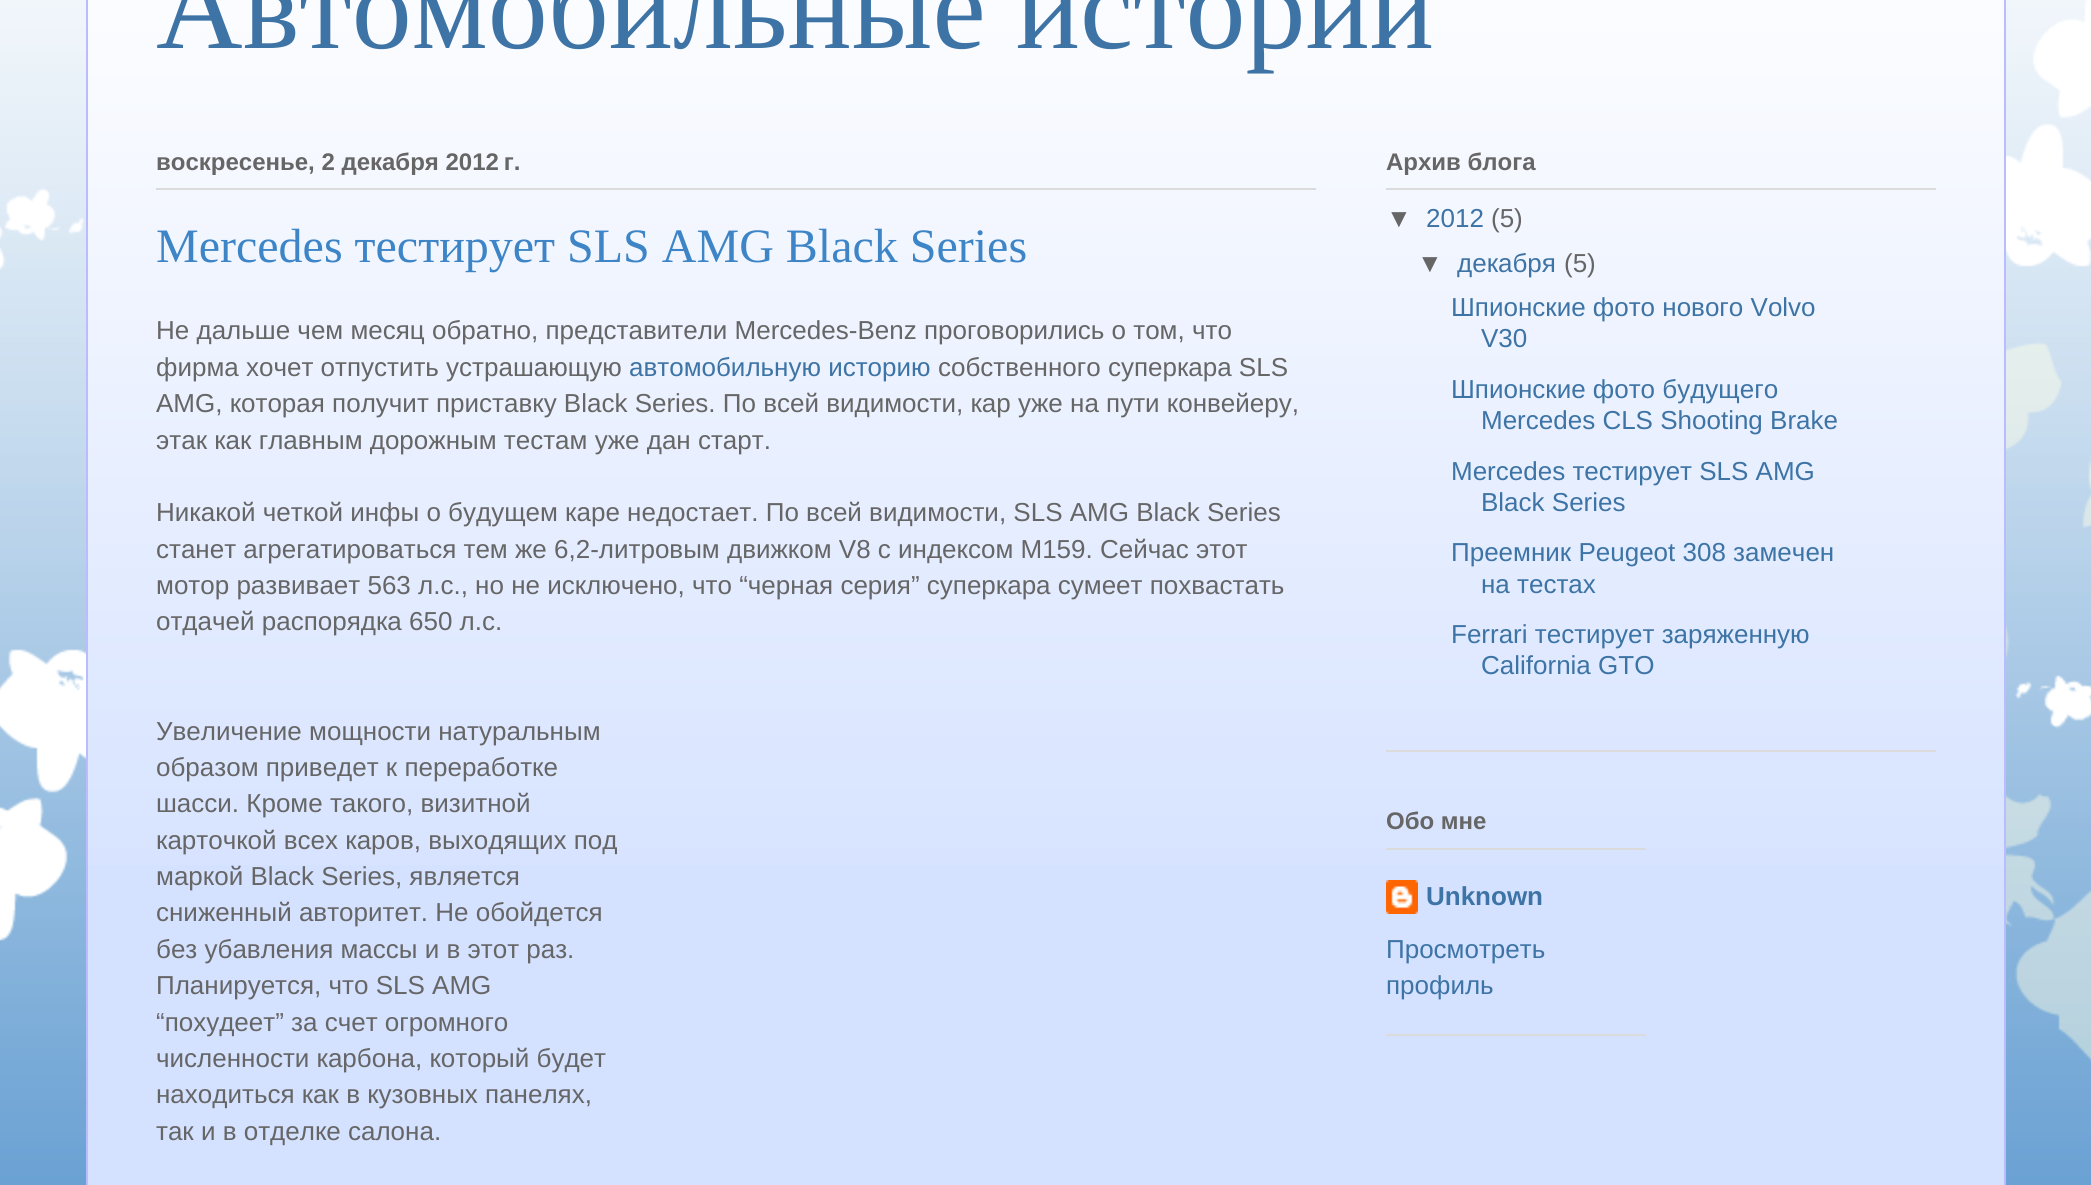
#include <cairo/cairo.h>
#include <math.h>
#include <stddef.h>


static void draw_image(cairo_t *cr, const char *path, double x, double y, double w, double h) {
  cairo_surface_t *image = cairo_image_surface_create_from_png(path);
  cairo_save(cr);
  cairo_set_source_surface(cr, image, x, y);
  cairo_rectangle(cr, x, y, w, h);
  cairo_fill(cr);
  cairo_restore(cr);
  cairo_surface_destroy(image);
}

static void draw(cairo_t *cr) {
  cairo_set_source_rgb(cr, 61 / 255.0, 133 / 255.0, 198 / 255.0);
  cairo_paint(cr);
  draw_image(cr, "images/1.png", 0, 0, 2091, 1185);
  cairo_set_source_rgb(cr, 212 / 255.0, 225 / 255.0, 1);
  cairo_rectangle(cr, 88, 0, 1916, 1185);
  cairo_fill(cr);
  draw_image(cr, "images/2.png", 88, 0, 1916, 865);
  cairo_set_source_rgb(cr, 187 / 255.0, 187 / 255.0, 1);
  cairo_rectangle(cr, 2004, 0, 2, 1185);
  cairo_fill(cr);
  cairo_rectangle(cr, 86, 0, 2, 1185);
  cairo_fill(cr);
  cairo_set_source_rgb(cr, 219 / 255.0, 219 / 255.0, 219 / 255.0);
  cairo_rectangle(cr, 156, 188, 1160, 2);
  cairo_fill(cr);
  cairo_rectangle(cr, 1386, 750, 550, 2);
  cairo_fill(cr);
  cairo_rectangle(cr, 1386, 188, 550, 2);
  cairo_fill(cr);
  cairo_rectangle(cr, 1386, 1034, 260, 2);
  cairo_fill(cr);
  cairo_rectangle(cr, 1386, 848, 260, 2);
  cairo_fill(cr);
  draw_image(cr, "images/3.png", 1386, 880, 32, 34);
  cairo_select_font_face(cr, "Liberation Serif", CAIRO_FONT_SLANT_NORMAL, CAIRO_FONT_WEIGHT_NORMAL);
  cairo_set_font_size(cr, 120);
  cairo_set_source_rgb(cr, 61 / 255.0, 116 / 255.0, 165 / 255.0);
  cairo_move_to(cr, 156, 48);
  cairo_show_text(cr, "Автомобильные истории");
  cairo_select_font_face(cr, "Liberation Sans", CAIRO_FONT_SLANT_NORMAL, CAIRO_FONT_WEIGHT_BOLD);
  cairo_set_font_size(cr, 24);
  cairo_set_source_rgb(cr, 102 / 255.0, 102 / 255.0, 102 / 255.0);
  cairo_move_to(cr, 156, 170);
  cairo_show_text(cr, "воскресенье, 2 декабря 2012 г.");
  cairo_select_font_face(cr, "Liberation Serif", CAIRO_FONT_SLANT_NORMAL, CAIRO_FONT_WEIGHT_NORMAL);
  cairo_set_font_size(cr, 48);
  cairo_set_source_rgb(cr, 61 / 255.0, 133 / 255.0, 198 / 255.0);
  cairo_move_to(cr, 156, 262);
  cairo_show_text(cr, "Mercedes тестирует SLS AMG Black Series");
  cairo_select_font_face(cr, "Liberation Sans", CAIRO_FONT_SLANT_NORMAL, CAIRO_FONT_WEIGHT_NORMAL);
  cairo_set_font_size(cr, 26);
  cairo_set_source_rgb(cr, 102 / 255.0, 102 / 255.0, 102 / 255.0);
  cairo_move_to(cr, 156, 339);
  cairo_show_text(cr, "Не дальше чем месяц обратно, представители Mercedes-Benz проговорились о том, что");
  cairo_move_to(cr, 156, 376);
  cairo_show_text(cr, "фирма хочет отпустить устрашающую");
  cairo_set_source_rgb(cr, 61 / 255.0, 116 / 255.0, 165 / 255.0);
  cairo_move_to(cr, 629, 376);
  cairo_show_text(cr, "автомобильную историю");
  cairo_set_source_rgb(cr, 102 / 255.0, 102 / 255.0, 102 / 255.0);
  cairo_move_to(cr, 938, 376);
  cairo_show_text(cr, "собственного суперкара SLS");
  cairo_move_to(cr, 156, 412);
  cairo_show_text(cr, "AMG, которая получит приставку Black Series. По всей видимости, кар уже на пути конвейеру,");
  cairo_move_to(cr, 156, 449);
  cairo_show_text(cr, "этак как главным дорожным тестам уже дан старт.");
  cairo_move_to(cr, 156, 521);
  cairo_show_text(cr, "Никакой четкой инфы о будущем каре недостает. По всей видимости, SLS AMG Black Series");
  cairo_move_to(cr, 156, 558);
  cairo_show_text(cr, "станет агрегатироваться тем же 6,2-литровым движком V8 с индексом М159. Сейчас этот");
  cairo_move_to(cr, 156, 594);
  cairo_show_text(cr, "мотор развивает 563 л.с., но не исключено, что “черная серия” суперкара сумеет похвастать");
  cairo_move_to(cr, 156, 630);
  cairo_show_text(cr, "отдачей распорядка 650 л.с.");
  cairo_move_to(cr, 156, 740);
  cairo_show_text(cr, "Увеличение мощности натуральным");
  cairo_move_to(cr, 156, 776);
  cairo_show_text(cr, "образом приведет к переработке");
  cairo_move_to(cr, 156, 812);
  cairo_show_text(cr, "шасси. Кроме такого, визитной");
  cairo_move_to(cr, 156, 849);
  cairo_show_text(cr, "карточкой всех каров, выходящих под");
  cairo_move_to(cr, 156, 885);
  cairo_show_text(cr, "маркой Black Series, является");
  cairo_move_to(cr, 156, 921);
  cairo_show_text(cr, "сниженный авторитет. Не обойдется");
  cairo_move_to(cr, 156, 958);
  cairo_show_text(cr, "без убавления массы и в этот раз.");
  cairo_move_to(cr, 156, 994);
  cairo_show_text(cr, "Планируется, что SLS AMG");
  cairo_move_to(cr, 156, 1031);
  cairo_show_text(cr, "“похудеет” за счет огромного");
  cairo_move_to(cr, 156, 1067);
  cairo_show_text(cr, "численности карбона, который будет");
  cairo_move_to(cr, 156, 1103);
  cairo_show_text(cr, "находиться как в кузовных панелях,");
  cairo_move_to(cr, 156, 1140);
  cairo_show_text(cr, "так и в отделке салона.");
  cairo_select_font_face(cr, "Liberation Sans", CAIRO_FONT_SLANT_NORMAL, CAIRO_FONT_WEIGHT_BOLD);
  cairo_set_font_size(cr, 24);
  cairo_move_to(cr, 1386, 170);
  cairo_show_text(cr, "Архив блога");
  cairo_select_font_face(cr, "Liberation Sans", CAIRO_FONT_SLANT_NORMAL, CAIRO_FONT_WEIGHT_NORMAL);
  cairo_set_font_size(cr, 26);
  cairo_move_to(cr, 1386, 227);
  cairo_show_text(cr, "▼");
  cairo_set_source_rgb(cr, 61 / 255.0, 116 / 255.0, 165 / 255.0);
  cairo_move_to(cr, 1426, 227);
  cairo_show_text(cr, "2012");
  cairo_set_source_rgb(cr, 102 / 255.0, 102 / 255.0, 102 / 255.0);
  cairo_move_to(cr, 1491, 227);
  cairo_show_text(cr, "(5)");
  cairo_move_to(cr, 1417, 272);
  cairo_show_text(cr, "▼");
  cairo_set_source_rgb(cr, 61 / 255.0, 116 / 255.0, 165 / 255.0);
  cairo_move_to(cr, 1457, 272);
  cairo_show_text(cr, "декабря");
  cairo_set_source_rgb(cr, 102 / 255.0, 102 / 255.0, 102 / 255.0);
  cairo_move_to(cr, 1564, 272);
  cairo_show_text(cr, "(5)");
  cairo_set_source_rgb(cr, 61 / 255.0, 116 / 255.0, 165 / 255.0);
  cairo_move_to(cr, 1451, 316);
  cairo_show_text(cr, "Шпионские фото нового Volvo");
  cairo_move_to(cr, 1481, 347);
  cairo_show_text(cr, "V30");
  cairo_move_to(cr, 1451, 398);
  cairo_show_text(cr, "Шпионские фото будущего");
  cairo_move_to(cr, 1481, 429);
  cairo_show_text(cr, "Mercedes CLS Shooting Brake");
  cairo_move_to(cr, 1451, 480);
  cairo_show_text(cr, "Mercedes тестирует SLS AMG");
  cairo_move_to(cr, 1481, 511);
  cairo_show_text(cr, "Black Series");
  cairo_move_to(cr, 1451, 561);
  cairo_show_text(cr, "Преемник Peugeot 308 замечен");
  cairo_move_to(cr, 1481, 593);
  cairo_show_text(cr, "на тестах");
  cairo_move_to(cr, 1451, 643);
  cairo_show_text(cr, "Ferrari тестирует заряженную");
  cairo_move_to(cr, 1481, 674);
  cairo_show_text(cr, "California GTO");
  cairo_select_font_face(cr, "Liberation Sans", CAIRO_FONT_SLANT_NORMAL, CAIRO_FONT_WEIGHT_BOLD);
  cairo_set_font_size(cr, 24);
  cairo_set_source_rgb(cr, 102 / 255.0, 102 / 255.0, 102 / 255.0);
  cairo_move_to(cr, 1386, 829);
  cairo_show_text(cr, "Обо мне");
  cairo_set_font_size(cr, 26);
  cairo_set_source_rgb(cr, 61 / 255.0, 116 / 255.0, 165 / 255.0);
  cairo_move_to(cr, 1426, 905);
  cairo_show_text(cr, "Unknown");
  cairo_select_font_face(cr, "Liberation Sans", CAIRO_FONT_SLANT_NORMAL, CAIRO_FONT_WEIGHT_NORMAL);
  cairo_move_to(cr, 1386, 958);
  cairo_show_text(cr, "Просмотреть");
  cairo_move_to(cr, 1386, 994);
  cairo_show_text(cr, "профиль");
}

int main(void) {
  cairo_surface_t *surface = cairo_image_surface_create(CAIRO_FORMAT_RGB24, 2091, 1185);
  cairo_t *cr = cairo_create(surface);
  cairo_font_options_t *options = cairo_font_options_create();
  cairo_font_options_set_hint_metrics(options, CAIRO_HINT_METRICS_OFF);
  cairo_font_options_set_hint_style(options, CAIRO_HINT_STYLE_NONE);
  cairo_set_font_options(cr, options);
  cairo_set_miter_limit(cr, 4);
  draw(cr);
  cairo_surface_write_to_png(surface, "out.png");
  cairo_font_options_destroy(options);
  cairo_destroy(cr);
  cairo_surface_destroy(surface);
  return 0;
}
